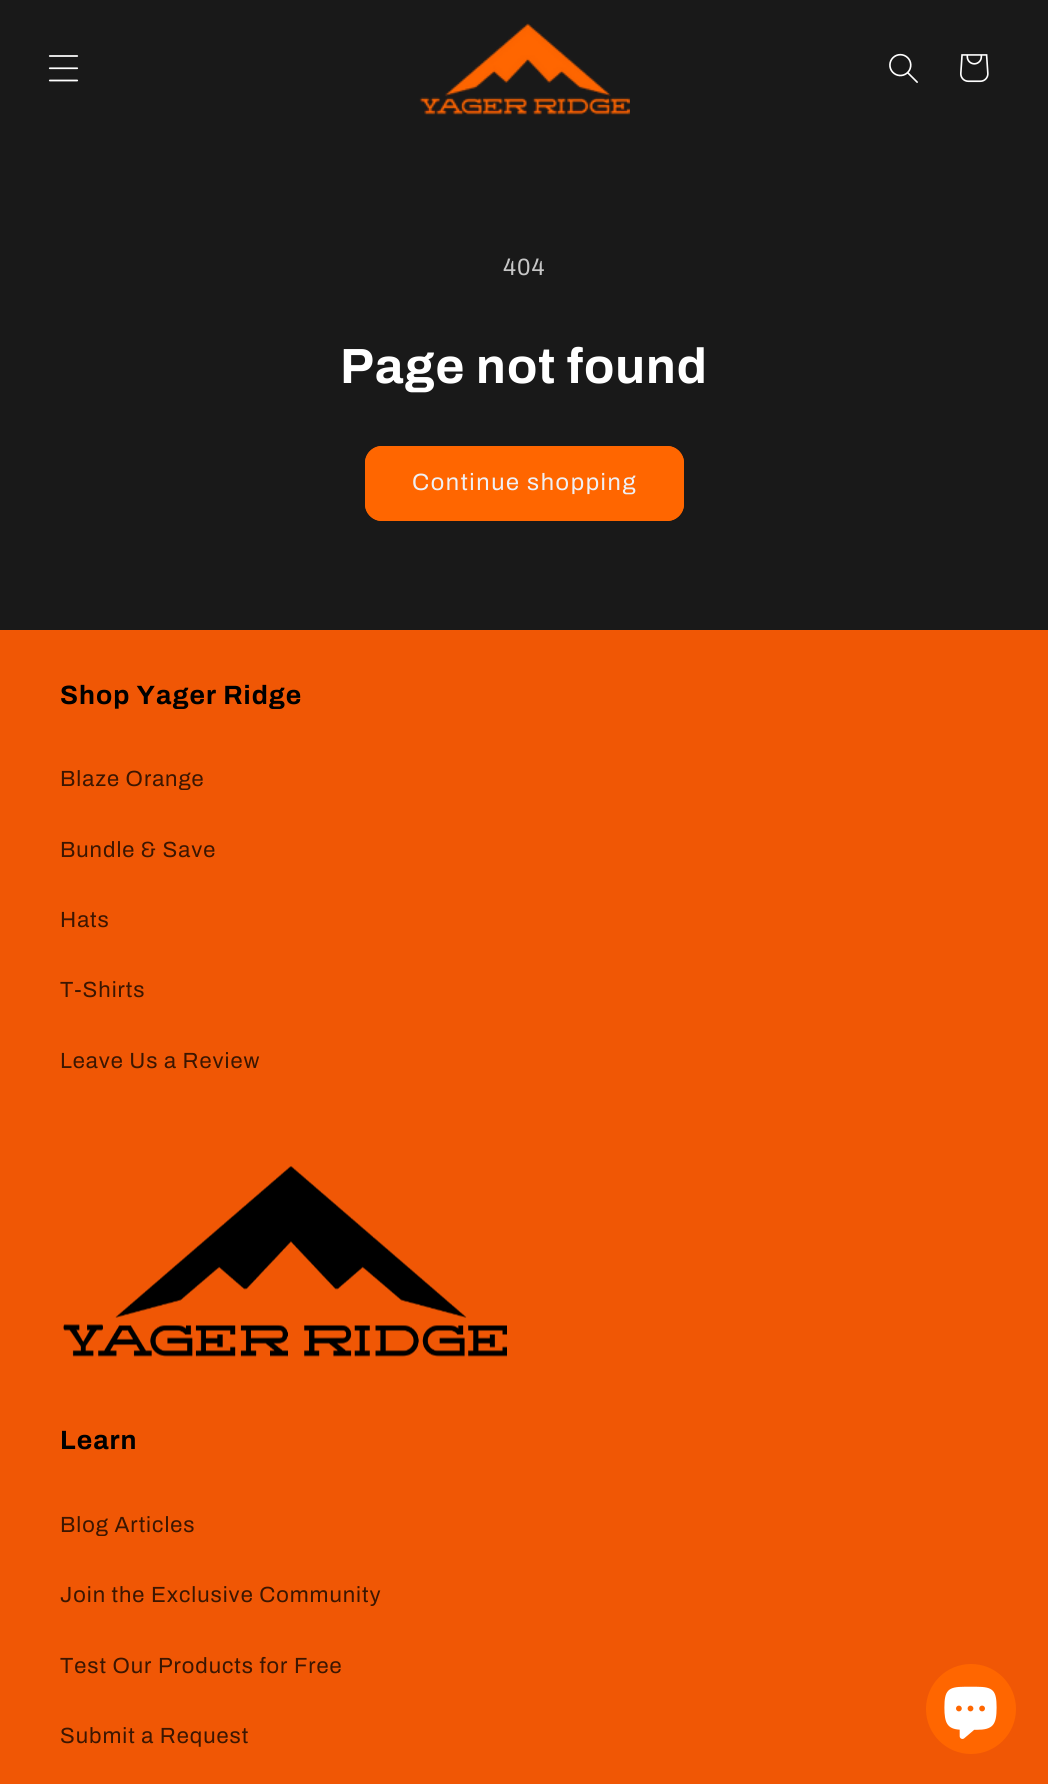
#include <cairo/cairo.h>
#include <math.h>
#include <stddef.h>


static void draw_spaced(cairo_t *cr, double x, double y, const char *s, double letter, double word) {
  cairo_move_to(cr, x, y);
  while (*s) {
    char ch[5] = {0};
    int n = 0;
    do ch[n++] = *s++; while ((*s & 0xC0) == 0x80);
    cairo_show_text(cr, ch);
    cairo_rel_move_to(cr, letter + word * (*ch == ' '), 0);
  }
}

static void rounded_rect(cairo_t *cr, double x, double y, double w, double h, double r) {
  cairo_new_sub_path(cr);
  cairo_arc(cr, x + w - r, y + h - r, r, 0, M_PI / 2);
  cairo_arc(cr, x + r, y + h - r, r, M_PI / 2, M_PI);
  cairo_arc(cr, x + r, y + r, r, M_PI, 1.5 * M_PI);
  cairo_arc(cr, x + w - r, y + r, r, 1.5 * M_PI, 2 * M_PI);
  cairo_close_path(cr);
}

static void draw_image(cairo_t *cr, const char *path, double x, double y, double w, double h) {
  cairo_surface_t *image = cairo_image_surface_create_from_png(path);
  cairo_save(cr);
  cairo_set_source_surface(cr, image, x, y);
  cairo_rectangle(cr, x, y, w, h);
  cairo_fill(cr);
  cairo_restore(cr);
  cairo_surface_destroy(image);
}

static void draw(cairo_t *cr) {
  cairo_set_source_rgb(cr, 25 / 255.0, 25 / 255.0, 25 / 255.0);
  cairo_paint(cr);
  draw_image(cr, "images/1.png", 48, 55, 31, 27);
  draw_image(cr, "images/2.png", 419, 23, 211, 92);
  draw_image(cr, "images/3.png", 889, 53, 29, 30);
  draw_image(cr, "images/4.png", 960, 54, 29, 29);
  cairo_set_source_rgb(cr, 1, 102 / 255.0, 0);
  rounded_rect(cr, 365, 446, 319, 75, 17);
  cairo_fill(cr);
  rounded_rect(cr, 366, 447, 317, 73, 16);
  cairo_stroke(cr);
  cairo_set_source_rgb(cr, 240 / 255.0, 87 / 255.0, 5 / 255.0);
  cairo_rectangle(cr, 0, 630, 1048, 1154);
  cairo_fill(cr);
  draw_image(cr, "images/5.png", 63, 1166, 444, 191);
  cairo_set_source_rgb(cr, 1, 102 / 255.0, 0);
  cairo_arc(cr, 971, 1709, 45, 0, 2 * M_PI);
  cairo_fill(cr);
  draw_image(cr, "images/6.png", 944, 1686, 53, 53);
  cairo_select_font_face(cr, "Archivo", CAIRO_FONT_SLANT_NORMAL, CAIRO_FONT_WEIGHT_NORMAL);
  cairo_set_font_size(cr, 23.6);
  cairo_set_source_rgb(cr, 198 / 255.0, 198 / 255.0, 198 / 255.0);
  draw_spaced(cr, 503, 275, "404", 0.95, 0);
  cairo_select_font_face(cr, "Archivo", CAIRO_FONT_SLANT_NORMAL, CAIRO_FONT_WEIGHT_BOLD);
  cairo_set_font_size(cr, 49.5);
  cairo_set_source_rgb(cr, 1, 1, 1);
  draw_spaced(cr, 340, 383, "Page not found", 1, 0);
  cairo_select_font_face(cr, "Archivo", CAIRO_FONT_SLANT_NORMAL, CAIRO_FONT_WEIGHT_NORMAL);
  cairo_set_font_size(cr, 23.6);
  cairo_set_source_rgb(cr, 239 / 255.0, 240 / 255.0, 245 / 255.0);
  draw_spaced(cr, 412, 490, "Continue shopping", 1.6, 0);
  cairo_select_font_face(cr, "Archivo", CAIRO_FONT_SLANT_NORMAL, CAIRO_FONT_WEIGHT_BOLD);
  cairo_set_font_size(cr, 26.5);
  cairo_set_source_rgb(cr, 0, 0, 0);
  draw_spaced(cr, 60, 704, "Shop Yager Ridge", 1, 0);
  cairo_select_font_face(cr, "Archivo", CAIRO_FONT_SLANT_NORMAL, CAIRO_FONT_WEIGHT_NORMAL);
  cairo_set_font_size(cr, 22);
  cairo_set_source_rgb(cr, 60 / 255.0, 22 / 255.0, 1 / 255.0);
  draw_spaced(cr, 60, 786, "Blaze Orange", 0.95, 0);
  draw_spaced(cr, 60, 857, "Bundle & Save", 0.95, 0);
  draw_spaced(cr, 60, 927, "Hats", 0.95, 0);
  draw_spaced(cr, 60, 997, "T-Shirts", 0.95, 0);
  draw_spaced(cr, 60, 1068, "Leave Us a Review", 0.95, 0);
  cairo_select_font_face(cr, "Archivo", CAIRO_FONT_SLANT_NORMAL, CAIRO_FONT_WEIGHT_BOLD);
  cairo_set_font_size(cr, 26.5);
  cairo_set_source_rgb(cr, 0, 0, 0);
  draw_spaced(cr, 60, 1449, "Learn", 1, 0);
  cairo_select_font_face(cr, "Archivo", CAIRO_FONT_SLANT_NORMAL, CAIRO_FONT_WEIGHT_NORMAL);
  cairo_set_font_size(cr, 22);
  cairo_set_source_rgb(cr, 60 / 255.0, 22 / 255.0, 1 / 255.0);
  draw_spaced(cr, 60, 1532, "Blog Articles", 0.95, 0);
  draw_spaced(cr, 60, 1602, "Join the Exclusive Community", 0.95, 0);
  draw_spaced(cr, 60, 1673, "Test Our Products for Free", 0.95, 0);
  draw_spaced(cr, 60, 1743, "Submit a Request", 0.95, 0);
}

int main(void) {
  cairo_surface_t *surface = cairo_image_surface_create(CAIRO_FORMAT_RGB24, 1048, 1784);
  cairo_t *cr = cairo_create(surface);
  cairo_font_options_t *options = cairo_font_options_create();
  cairo_font_options_set_hint_metrics(options, CAIRO_HINT_METRICS_OFF);
  cairo_font_options_set_hint_style(options, CAIRO_HINT_STYLE_NONE);
  cairo_set_font_options(cr, options);
  cairo_set_miter_limit(cr, 4);
  draw(cr);
  cairo_surface_write_to_png(surface, "out.png");
  cairo_font_options_destroy(options);
  cairo_destroy(cr);
  cairo_surface_destroy(surface);
  return 0;
}
